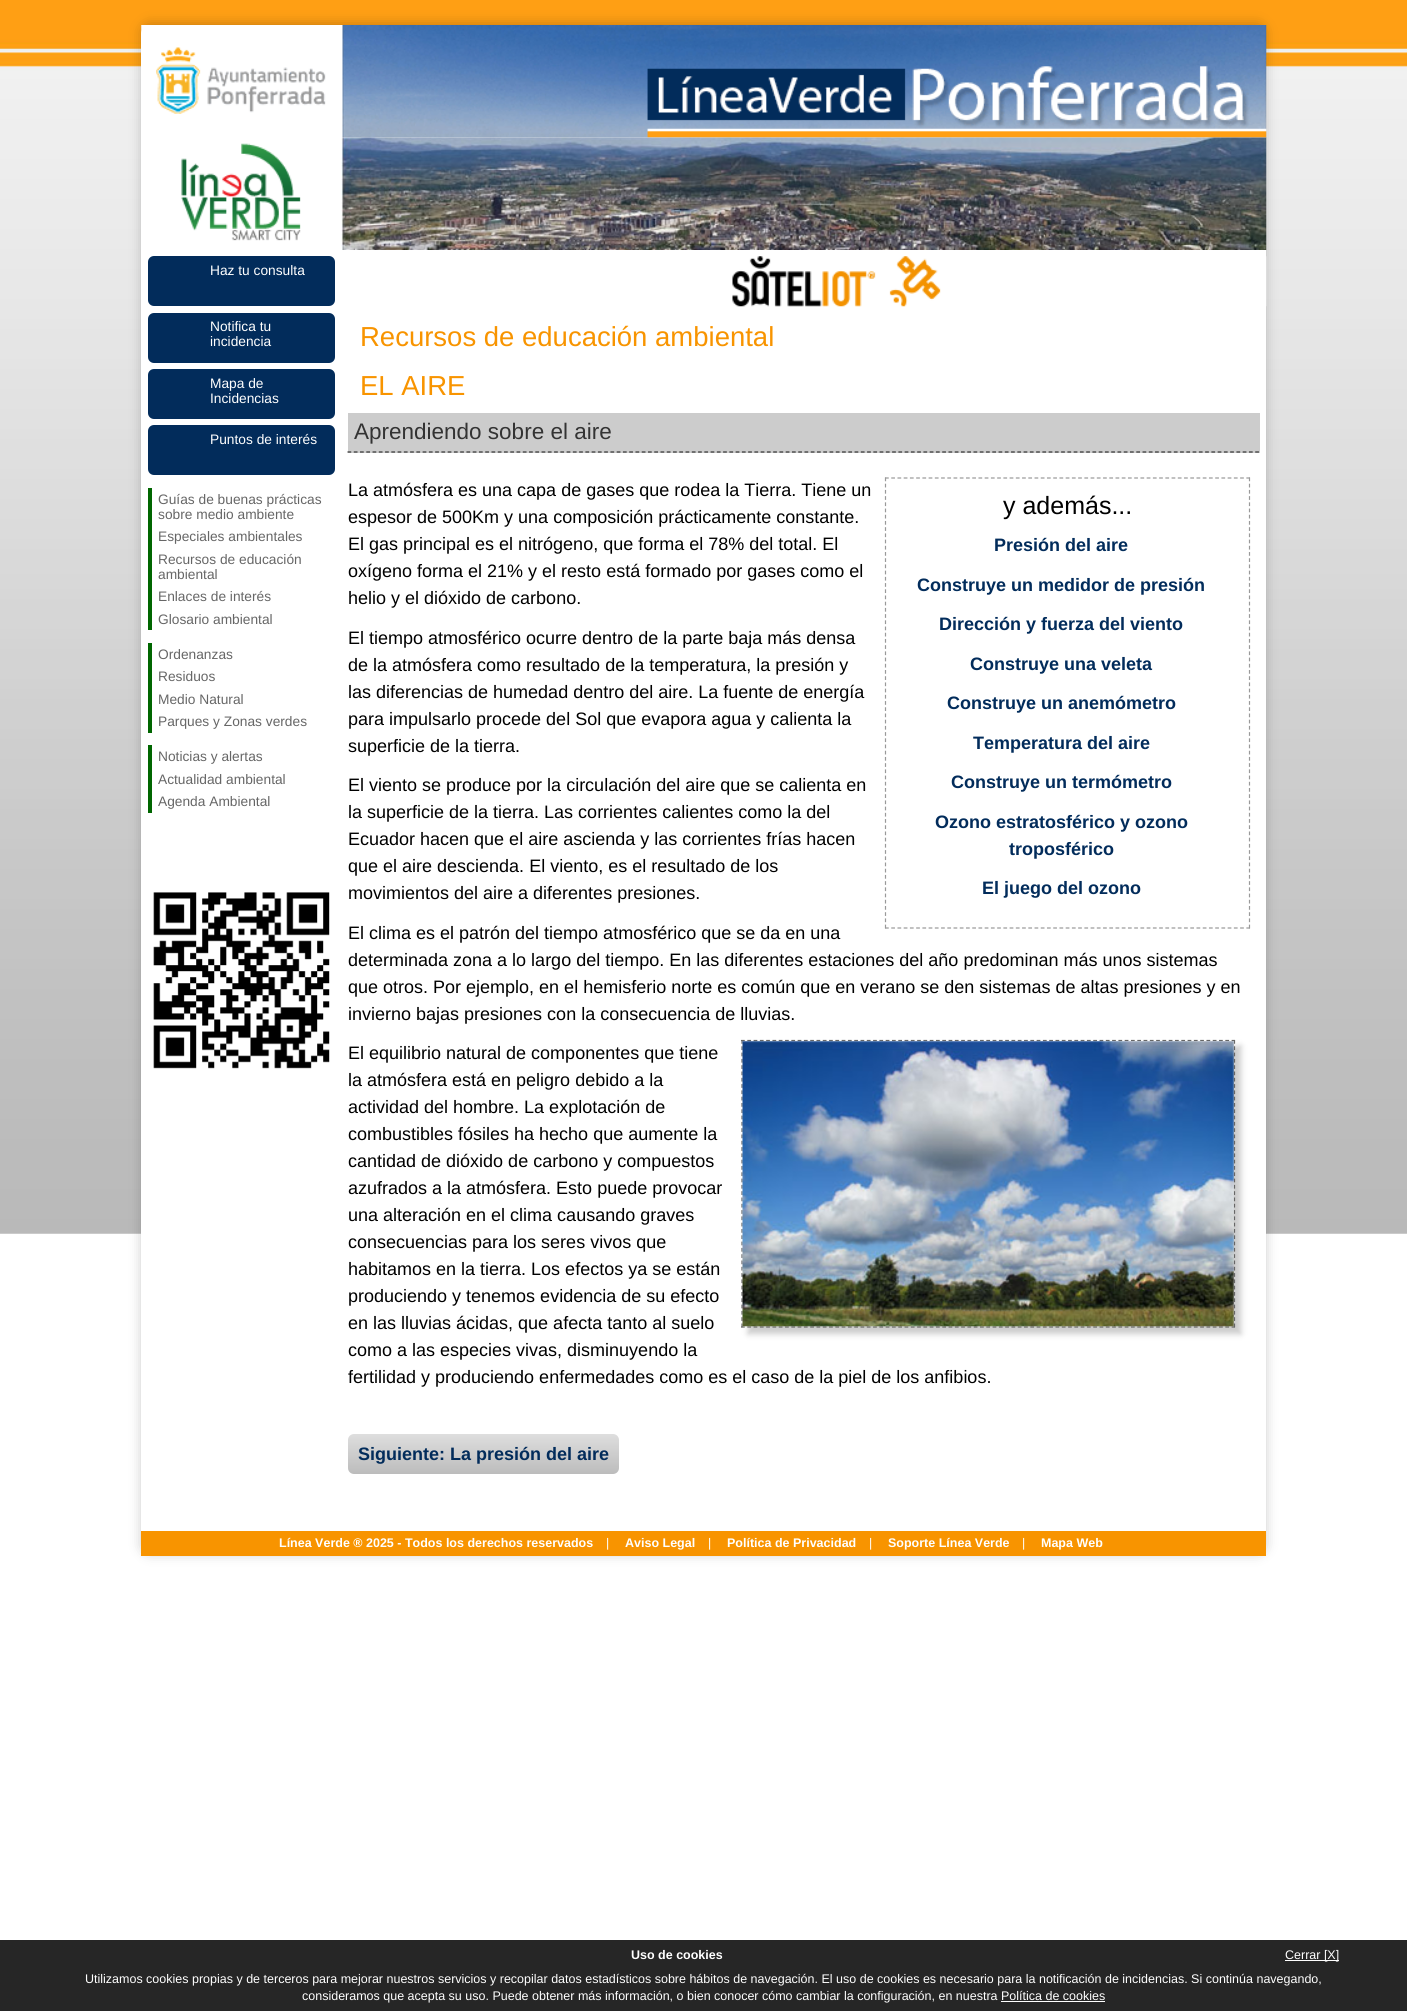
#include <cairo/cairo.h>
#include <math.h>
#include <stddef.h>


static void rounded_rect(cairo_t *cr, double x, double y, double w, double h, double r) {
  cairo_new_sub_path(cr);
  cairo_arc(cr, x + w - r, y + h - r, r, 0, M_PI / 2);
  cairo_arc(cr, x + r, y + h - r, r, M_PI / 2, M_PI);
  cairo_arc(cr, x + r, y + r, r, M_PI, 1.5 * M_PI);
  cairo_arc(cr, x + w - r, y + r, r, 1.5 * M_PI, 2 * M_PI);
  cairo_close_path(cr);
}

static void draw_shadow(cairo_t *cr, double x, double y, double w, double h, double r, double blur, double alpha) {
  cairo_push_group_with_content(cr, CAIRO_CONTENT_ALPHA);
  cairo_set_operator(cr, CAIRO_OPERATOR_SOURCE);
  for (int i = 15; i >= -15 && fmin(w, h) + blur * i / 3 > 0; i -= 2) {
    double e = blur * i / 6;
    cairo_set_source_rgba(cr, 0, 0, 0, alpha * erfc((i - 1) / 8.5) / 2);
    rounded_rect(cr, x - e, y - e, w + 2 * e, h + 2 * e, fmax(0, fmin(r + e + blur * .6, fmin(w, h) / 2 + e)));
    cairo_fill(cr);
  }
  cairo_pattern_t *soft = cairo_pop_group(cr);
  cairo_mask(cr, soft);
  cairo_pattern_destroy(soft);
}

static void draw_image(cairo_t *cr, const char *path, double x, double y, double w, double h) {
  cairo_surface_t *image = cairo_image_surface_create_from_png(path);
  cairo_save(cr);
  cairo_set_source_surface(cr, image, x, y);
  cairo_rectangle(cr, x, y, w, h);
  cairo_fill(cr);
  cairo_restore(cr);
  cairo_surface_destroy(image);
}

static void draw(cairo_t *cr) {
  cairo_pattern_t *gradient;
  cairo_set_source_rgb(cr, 1, 1, 1);
  cairo_paint(cr);
  draw_image(cr, "images/1.png", 0, 0, 1407, 1234);
  cairo_set_source_rgb(cr, 0, 0, 0);
  draw_shadow(cr, 141, 23, 1125, 1531, 9, 6, 0.2);
  cairo_set_source_rgb(cr, 1, 1, 1);
  rounded_rect(cr, 141, 25, 1125, 1531, 9);
  cairo_fill(cr);
  draw_image(cr, "images/2.png", 141, 25, 1126, 113);
  draw_image(cr, "images/3.png", 181, 143, 120, 98);
  draw_image(cr, "images/4.png", 341, 137, 926, 113);
  draw_image(cr, "images/5.png", 732, 256, 535, 51);
  cairo_set_source_rgb(cr, 2 / 255.0, 44 / 255.0, 91 / 255.0);
  rounded_rect(cr, 148, 256, 187, 50, 6);
  cairo_fill(cr);
  rounded_rect(cr, 148, 313, 187, 50, 6);
  cairo_fill(cr);
  rounded_rect(cr, 148, 369, 187, 50, 6);
  cairo_fill(cr);
  rounded_rect(cr, 148, 425, 187, 50, 6);
  cairo_fill(cr);
  cairo_set_source_rgb(cr, 0, 102 / 255.0, 0);
  cairo_rectangle(cr, 148, 488, 4, 142);
  cairo_fill(cr);
  cairo_rectangle(cr, 148, 643, 4, 90);
  cairo_fill(cr);
  cairo_rectangle(cr, 148, 745, 4, 68);
  cairo_fill(cr);
  draw_image(cr, "images/6.png", 153, 892, 177, 177);
  cairo_set_source_rgb(cr, 204 / 255.0, 204 / 255.0, 204 / 255.0);
  cairo_rectangle(cr, 348, 413, 912, 40);
  cairo_fill(cr);
  cairo_new_path(cr);
  cairo_move_to(cr, 347.5, 452);
  cairo_line_to(cr, 1260, 452);
  cairo_set_source_rgb(cr, 51 / 255.0, 51 / 255.0, 51 / 255.0);
  cairo_set_line_width(cr, 1.2);
  cairo_set_dash(cr, (double[]){3.75, 2.51}, 2, 0);
  cairo_stroke(cr);
  cairo_new_path(cr);
  cairo_move_to(cr, 885, 478);
  cairo_line_to(cr, 1250, 478);
  cairo_set_source_rgb(cr, 153 / 255.0, 153 / 255.0, 153 / 255.0);
  cairo_set_dash(cr, (double[]){3.75, 2.48}, 2, 0);
  cairo_stroke(cr);
  cairo_new_path(cr);
  cairo_move_to(cr, 1249.5, 477.5);
  cairo_line_to(cr, 1249.5, 929);
  cairo_set_dash(cr, (double[]){3.75, 2.46}, 2, 0);
  cairo_stroke(cr);
  cairo_new_path(cr);
  cairo_move_to(cr, 885, 928);
  cairo_line_to(cr, 1250, 928);
  cairo_set_dash(cr, (double[]){3.75, 2.48}, 2, 0);
  cairo_stroke(cr);
  cairo_new_path(cr);
  cairo_move_to(cr, 885.5, 477.5);
  cairo_line_to(cr, 885.5, 929);
  cairo_set_dash(cr, (double[]){3.75, 2.46}, 2, 0);
  cairo_stroke(cr);
  cairo_set_source_rgb(cr, 204 / 255.0, 204 / 255.0, 204 / 255.0);
  draw_shadow(cr, 748, 1046, 493, 288, 0, 3, 1);
  cairo_new_path(cr);
  cairo_move_to(cr, 741, 1040.5);
  cairo_line_to(cr, 1235, 1040.5);
  cairo_set_source_rgb(cr, 102 / 255.0, 102 / 255.0, 102 / 255.0);
  cairo_set_dash(cr, (double[]){3.75, 2.54}, 2, 0);
  cairo_stroke(cr);
  cairo_new_path(cr);
  cairo_move_to(cr, 1234.5, 1040);
  cairo_line_to(cr, 1234.5, 1327.5);
  cairo_set_dash(cr, (double[]){3.75, 2.55}, 2, 0);
  cairo_stroke(cr);
  cairo_new_path(cr);
  cairo_move_to(cr, 741, 1327);
  cairo_line_to(cr, 1235, 1327);
  cairo_set_dash(cr, (double[]){3.75, 2.54}, 2, 0);
  cairo_stroke(cr);
  cairo_new_path(cr);
  cairo_move_to(cr, 742, 1040);
  cairo_line_to(cr, 742, 1327.5);
  cairo_set_dash(cr, (double[]){3.75, 2.55}, 2, 0);
  cairo_stroke(cr);
  draw_image(cr, "images/7.png", 742, 1041, 492, 286);
  gradient = cairo_pattern_create_linear(483, 1434, 483, 1474);
  cairo_pattern_add_color_stop_rgba(gradient, 0, 222 / 255.0, 222 / 255.0, 222 / 255.0, 1);
  cairo_pattern_add_color_stop_rgba(gradient, 1, 188 / 255.0, 188 / 255.0, 188 / 255.0, 1);
  cairo_set_source(cr, gradient);
  cairo_pattern_destroy(gradient);
  rounded_rect(cr, 348, 1434, 271, 40, 6);
  cairo_fill(cr);
  cairo_set_source_rgb(cr, 248 / 255.0, 148 / 255.0, 0);
  cairo_rectangle(cr, 141, 1531, 1125, 25);
  cairo_fill(cr);
  cairo_set_source_rgb(cr, 38 / 255.0, 38 / 255.0, 38 / 255.0);
  cairo_rectangle(cr, 0, 1940, 1407, 71);
  cairo_fill(cr);
  cairo_set_source_rgb(cr, 1, 1, 1);
  cairo_rectangle(cr, 1285, 1960, 54, 1);
  cairo_fill(cr);
  cairo_rectangle(cr, 1001, 2001, 104, 1);
  cairo_fill(cr);
  cairo_select_font_face(cr, "Liberation Sans", CAIRO_FONT_SLANT_NORMAL, CAIRO_FONT_WEIGHT_NORMAL);
  cairo_set_font_size(cr, 13.75);
  cairo_move_to(cr, 210, 275);
  cairo_show_text(cr, "Haz tu consulta");
  cairo_move_to(cr, 210, 331);
  cairo_show_text(cr, "Notifica tu");
  cairo_move_to(cr, 210, 346);
  cairo_show_text(cr, "incidencia");
  cairo_move_to(cr, 210, 388);
  cairo_show_text(cr, "Mapa de");
  cairo_move_to(cr, 210, 403);
  cairo_show_text(cr, "Incidencias");
  cairo_move_to(cr, 210, 444);
  cairo_show_text(cr, "Puntos de interés");
  cairo_set_source_rgb(cr, 102 / 255.0, 102 / 255.0, 102 / 255.0);
  cairo_move_to(cr, 158, 504);
  cairo_show_text(cr, "Guías de buenas prácticas");
  cairo_move_to(cr, 158, 519);
  cairo_show_text(cr, "sobre medio ambiente");
  cairo_move_to(cr, 158, 541);
  cairo_show_text(cr, "Especiales ambientales");
  cairo_move_to(cr, 158, 564);
  cairo_show_text(cr, "Recursos de educación");
  cairo_move_to(cr, 158, 579);
  cairo_show_text(cr, "ambiental");
  cairo_move_to(cr, 158, 601);
  cairo_show_text(cr, "Enlaces de interés");
  cairo_move_to(cr, 158, 624);
  cairo_show_text(cr, "Glosario ambiental");
  cairo_move_to(cr, 158, 659);
  cairo_show_text(cr, "Ordenanzas");
  cairo_move_to(cr, 158, 681);
  cairo_show_text(cr, "Residuos");
  cairo_move_to(cr, 158, 704);
  cairo_show_text(cr, "Medio Natural");
  cairo_move_to(cr, 158, 726);
  cairo_show_text(cr, "Parques y Zonas verdes");
  cairo_move_to(cr, 158, 761);
  cairo_show_text(cr, "Noticias y alertas");
  cairo_move_to(cr, 158, 784);
  cairo_show_text(cr, "Actualidad ambiental");
  cairo_move_to(cr, 158, 806);
  cairo_show_text(cr, "Agenda Ambiental");
  cairo_set_font_size(cr, 27.5);
  cairo_set_source_rgb(cr, 248 / 255.0, 148 / 255.0, 0);
  cairo_move_to(cr, 360, 346);
  cairo_show_text(cr, "Recursos de educación ambiental");
  cairo_move_to(cr, 360, 395);
  cairo_show_text(cr, "EL AIRE");
  cairo_set_font_size(cr, 22.5);
  cairo_set_source_rgb(cr, 51 / 255.0, 51 / 255.0, 51 / 255.0);
  cairo_move_to(cr, 354, 439);
  cairo_show_text(cr, "Aprendiendo sobre el aire");
  cairo_set_font_size(cr, 18);
  cairo_set_source_rgb(cr, 0, 0, 0);
  cairo_move_to(cr, 348, 496);
  cairo_show_text(cr, "La atmósfera es una capa de gases que rodea la Tierra. Tiene un");
  cairo_move_to(cr, 348, 523);
  cairo_show_text(cr, "espesor de 500Km y una composición prácticamente constante.");
  cairo_move_to(cr, 348, 550);
  cairo_show_text(cr, "El gas principal es el nitrógeno, que forma el 78% del total. El");
  cairo_move_to(cr, 348, 577);
  cairo_show_text(cr, "oxígeno forma el 21% y el resto está formado por gases como el");
  cairo_move_to(cr, 348, 604);
  cairo_show_text(cr, "helio y el dióxido de carbono.");
  cairo_set_font_size(cr, 25);
  cairo_move_to(cr, 1003, 514);
  cairo_show_text(cr, "y además...");
  cairo_select_font_face(cr, "Liberation Sans", CAIRO_FONT_SLANT_NORMAL, CAIRO_FONT_WEIGHT_BOLD);
  cairo_set_font_size(cr, 18);
  cairo_set_source_rgb(cr, 2 / 255.0, 44 / 255.0, 91 / 255.0);
  cairo_move_to(cr, 994, 551);
  cairo_show_text(cr, "Presión del aire");
  cairo_move_to(cr, 917, 591);
  cairo_show_text(cr, "Construye un medidor de presión");
  cairo_move_to(cr, 939, 630);
  cairo_show_text(cr, "Dirección y fuerza del viento");
  cairo_move_to(cr, 970, 670);
  cairo_show_text(cr, "Construye una veleta");
  cairo_move_to(cr, 947, 709);
  cairo_show_text(cr, "Construye un anemómetro");
  cairo_move_to(cr, 973, 749);
  cairo_show_text(cr, "Temperatura del aire");
  cairo_move_to(cr, 951, 788);
  cairo_show_text(cr, "Construye un termómetro");
  cairo_move_to(cr, 935, 828);
  cairo_show_text(cr, "Ozono estratosférico y ozono");
  cairo_move_to(cr, 1009, 855);
  cairo_show_text(cr, "troposférico");
  cairo_move_to(cr, 982, 894);
  cairo_show_text(cr, "El juego del ozono");
  cairo_select_font_face(cr, "Liberation Sans", CAIRO_FONT_SLANT_NORMAL, CAIRO_FONT_WEIGHT_NORMAL);
  cairo_set_source_rgb(cr, 0, 0, 0);
  cairo_move_to(cr, 348, 644);
  cairo_show_text(cr, "El tiempo atmosférico ocurre dentro de la parte baja más densa");
  cairo_move_to(cr, 348, 671);
  cairo_show_text(cr, "de la atmósfera como resultado de la temperatura, la presión y");
  cairo_move_to(cr, 348, 698);
  cairo_show_text(cr, "las diferencias de humedad dentro del aire. La fuente de energía");
  cairo_move_to(cr, 348, 725);
  cairo_show_text(cr, "para impulsarlo procede del Sol que evapora agua y calienta la");
  cairo_move_to(cr, 348, 752);
  cairo_show_text(cr, "superficie de la tierra.");
  cairo_move_to(cr, 348, 791);
  cairo_show_text(cr, "El viento se produce por la circulación del aire que se calienta en");
  cairo_move_to(cr, 348, 818);
  cairo_show_text(cr, "la superficie de la tierra. Las corrientes calientes como la del");
  cairo_move_to(cr, 348, 845);
  cairo_show_text(cr, "Ecuador hacen que el aire ascienda y las corrientes frías hacen");
  cairo_move_to(cr, 348, 872);
  cairo_show_text(cr, "que el aire descienda. El viento, es el resultado de los");
  cairo_move_to(cr, 348, 899);
  cairo_show_text(cr, "movimientos del aire a diferentes presiones.");
  cairo_move_to(cr, 348, 939);
  cairo_show_text(cr, "El clima es el patrón del tiempo atmosférico que se da en una");
  cairo_move_to(cr, 348, 966);
  cairo_show_text(cr, "determinada zona a lo largo del tiempo. En las diferentes estaciones del año predominan más unos sistemas");
  cairo_move_to(cr, 348, 993);
  cairo_show_text(cr, "que otros. Por ejemplo, en el hemisferio norte es común que en verano se den sistemas de altas presiones y en");
  cairo_move_to(cr, 348, 1020);
  cairo_show_text(cr, "invierno bajas presiones con la consecuencia de lluvias.");
  cairo_move_to(cr, 348, 1059);
  cairo_show_text(cr, "El equilibrio natural de componentes que tiene");
  cairo_move_to(cr, 348, 1086);
  cairo_show_text(cr, "la atmósfera está en peligro debido a la");
  cairo_move_to(cr, 348, 1113);
  cairo_show_text(cr, "actividad del hombre. La explotación de");
  cairo_move_to(cr, 348, 1140);
  cairo_show_text(cr, "combustibles fósiles ha hecho que aumente la");
  cairo_move_to(cr, 348, 1167);
  cairo_show_text(cr, "cantidad de dióxido de carbono y compuestos");
  cairo_move_to(cr, 348, 1194);
  cairo_show_text(cr, "azufrados a la atmósfera. Esto puede provocar");
  cairo_move_to(cr, 348, 1221);
  cairo_show_text(cr, "una alteración en el clima causando graves");
  cairo_move_to(cr, 348, 1248);
  cairo_show_text(cr, "consecuencias para los seres vivos que");
  cairo_move_to(cr, 348, 1275);
  cairo_show_text(cr, "habitamos en la tierra. Los efectos ya se están");
  cairo_move_to(cr, 348, 1302);
  cairo_show_text(cr, "produciendo y tenemos evidencia de su efecto");
  cairo_move_to(cr, 348, 1329);
  cairo_show_text(cr, "en las lluvias ácidas, que afecta tanto al suelo");
  cairo_move_to(cr, 348, 1356);
  cairo_show_text(cr, "como a las especies vivas, disminuyendo la");
  cairo_move_to(cr, 348, 1383);
  cairo_show_text(cr, "fertilidad y produciendo enfermedades como es el caso de la piel de los anfibios.");
  cairo_select_font_face(cr, "Liberation Sans", CAIRO_FONT_SLANT_NORMAL, CAIRO_FONT_WEIGHT_BOLD);
  cairo_set_source_rgb(cr, 2 / 255.0, 44 / 255.0, 91 / 255.0);
  cairo_move_to(cr, 358, 1460);
  cairo_show_text(cr, "Siguiente: La presión del aire");
  cairo_set_font_size(cr, 12.5);
  cairo_set_source_rgb(cr, 1, 1, 1);
  cairo_move_to(cr, 279, 1547);
  cairo_show_text(cr, "Línea Verde ® 2025 - Todos los derechos reservados");
  cairo_select_font_face(cr, "Liberation Sans", CAIRO_FONT_SLANT_NORMAL, CAIRO_FONT_WEIGHT_NORMAL);
  cairo_move_to(cr, 606, 1547);
  cairo_show_text(cr, "|");
  cairo_select_font_face(cr, "Liberation Sans", CAIRO_FONT_SLANT_NORMAL, CAIRO_FONT_WEIGHT_BOLD);
  cairo_move_to(cr, 625, 1547);
  cairo_show_text(cr, "Aviso Legal");
  cairo_select_font_face(cr, "Liberation Sans", CAIRO_FONT_SLANT_NORMAL, CAIRO_FONT_WEIGHT_NORMAL);
  cairo_move_to(cr, 708, 1547);
  cairo_show_text(cr, "|");
  cairo_select_font_face(cr, "Liberation Sans", CAIRO_FONT_SLANT_NORMAL, CAIRO_FONT_WEIGHT_BOLD);
  cairo_move_to(cr, 727, 1547);
  cairo_show_text(cr, "Política de Privacidad");
  cairo_select_font_face(cr, "Liberation Sans", CAIRO_FONT_SLANT_NORMAL, CAIRO_FONT_WEIGHT_NORMAL);
  cairo_move_to(cr, 869, 1547);
  cairo_show_text(cr, "|");
  cairo_select_font_face(cr, "Liberation Sans", CAIRO_FONT_SLANT_NORMAL, CAIRO_FONT_WEIGHT_BOLD);
  cairo_move_to(cr, 888, 1547);
  cairo_show_text(cr, "Soporte Línea Verde");
  cairo_select_font_face(cr, "Liberation Sans", CAIRO_FONT_SLANT_NORMAL, CAIRO_FONT_WEIGHT_NORMAL);
  cairo_move_to(cr, 1022, 1547);
  cairo_show_text(cr, "|");
  cairo_select_font_face(cr, "Liberation Sans", CAIRO_FONT_SLANT_NORMAL, CAIRO_FONT_WEIGHT_BOLD);
  cairo_move_to(cr, 1041, 1547);
  cairo_show_text(cr, "Mapa Web");
  cairo_move_to(cr, 631, 1959);
  cairo_show_text(cr, "Uso de cookies");
  cairo_select_font_face(cr, "Liberation Sans", CAIRO_FONT_SLANT_NORMAL, CAIRO_FONT_WEIGHT_NORMAL);
  cairo_move_to(cr, 1285, 1959);
  cairo_show_text(cr, "Cerrar [X]");
  cairo_move_to(cr, 85, 1983);
  cairo_show_text(cr, "Utilizamos cookies propias y de terceros para mejorar nuestros servicios y recopilar datos estadísticos sobre hábitos de navegación. El uso de cookies es necesario para la notificación de incidencias. Si continúa navegando,");
  cairo_move_to(cr, 302, 2000);
  cairo_show_text(cr, "consideramos que acepta su uso. Puede obtener más información, o bien conocer cómo cambiar la configuración, en nuestra Política de cookies");
}

int main(void) {
  cairo_surface_t *surface = cairo_image_surface_create(CAIRO_FORMAT_RGB24, 1407, 2011);
  cairo_t *cr = cairo_create(surface);
  cairo_font_options_t *options = cairo_font_options_create();
  cairo_font_options_set_hint_metrics(options, CAIRO_HINT_METRICS_OFF);
  cairo_font_options_set_hint_style(options, CAIRO_HINT_STYLE_NONE);
  cairo_set_font_options(cr, options);
  cairo_set_miter_limit(cr, 4);
  draw(cr);
  cairo_surface_write_to_png(surface, "out.png");
  cairo_font_options_destroy(options);
  cairo_destroy(cr);
  cairo_surface_destroy(surface);
  return 0;
}
